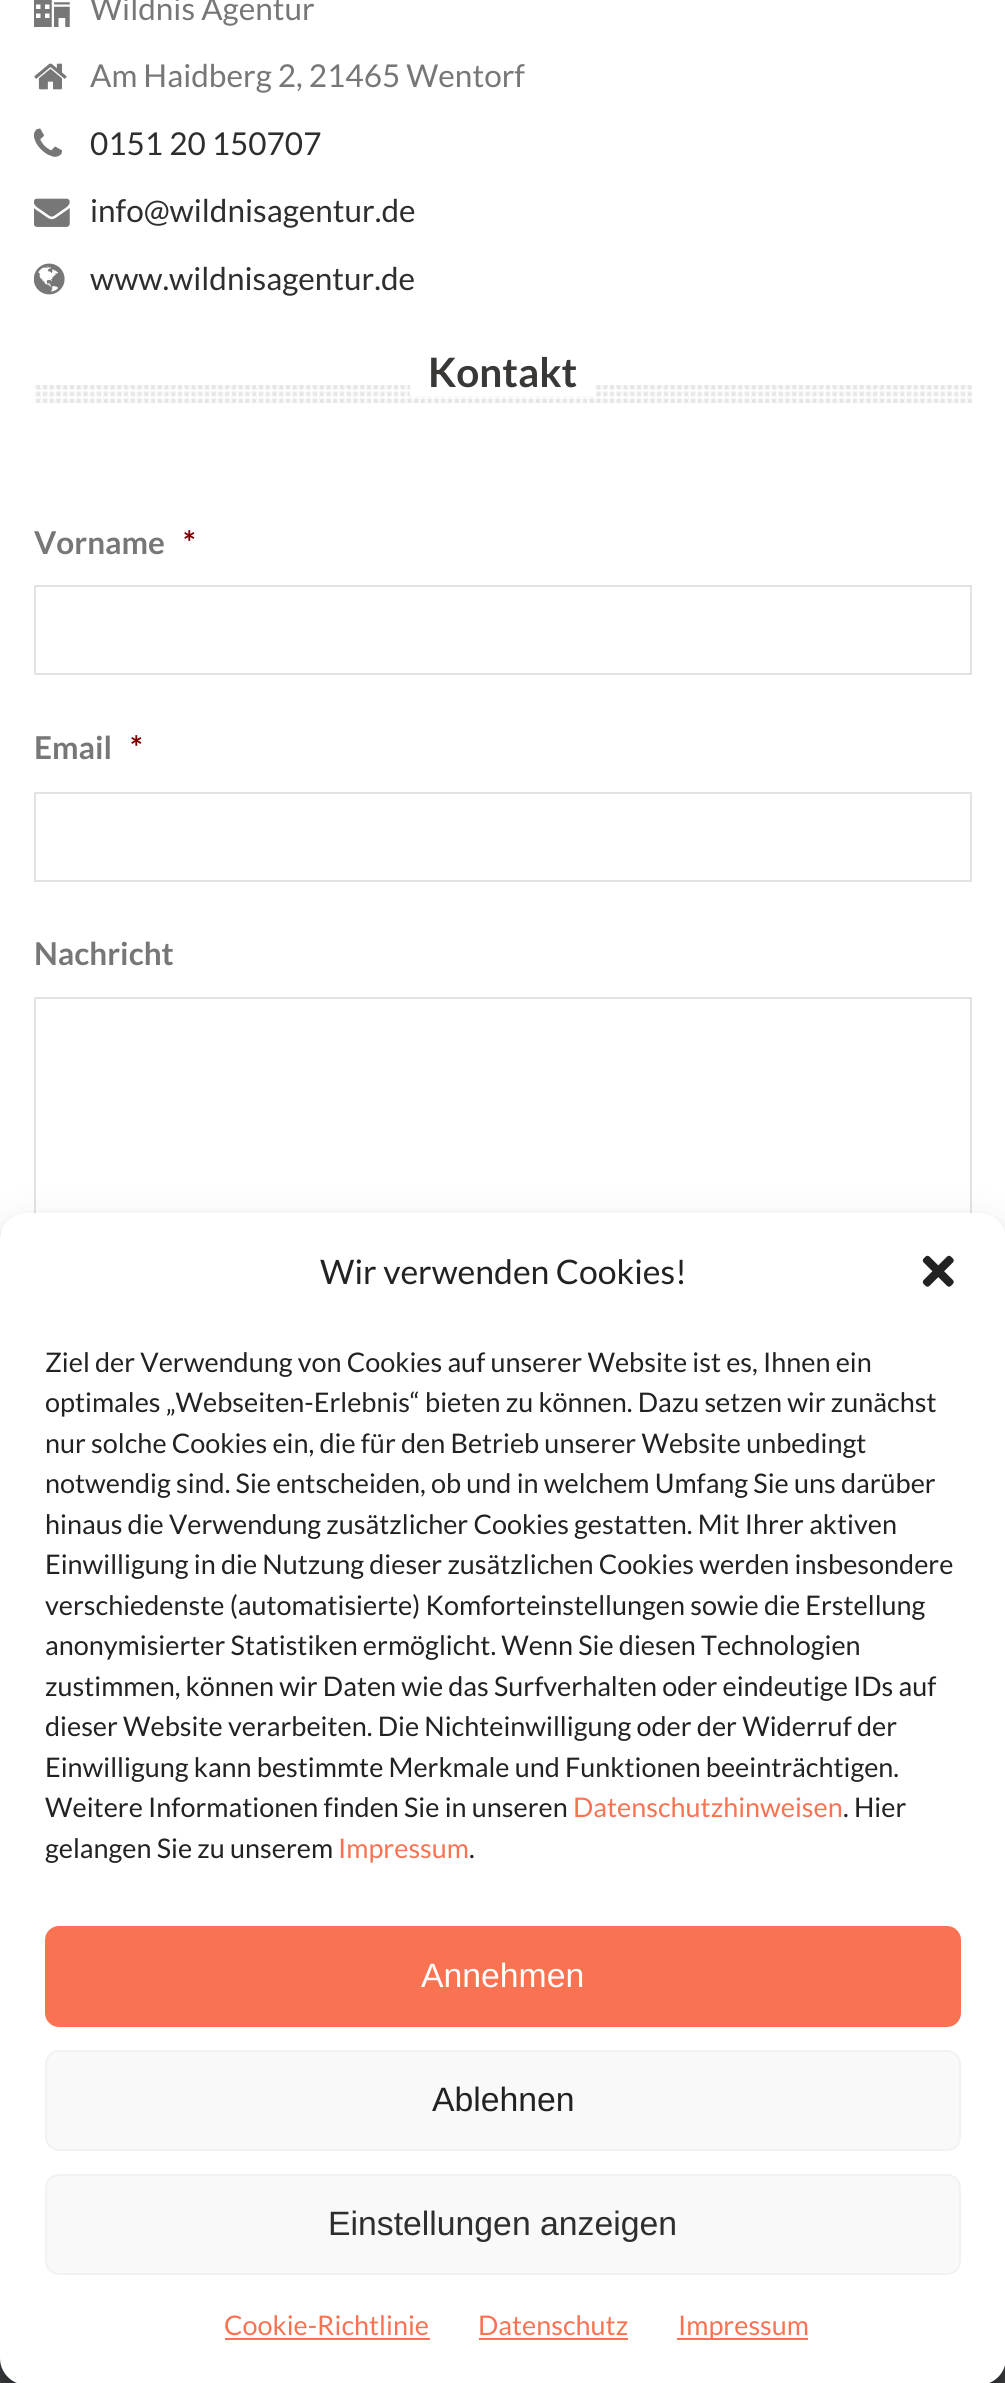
#include <cairo/cairo.h>
#include <math.h>
#include <stddef.h>


static void rounded_rect(cairo_t *cr, double x, double y, double w, double h, double r) {
  cairo_new_sub_path(cr);
  cairo_arc(cr, x + w - r, y + h - r, r, 0, M_PI / 2);
  cairo_arc(cr, x + r, y + h - r, r, M_PI / 2, M_PI);
  cairo_arc(cr, x + r, y + r, r, M_PI, 1.5 * M_PI);
  cairo_arc(cr, x + w - r, y + r, r, 1.5 * M_PI, 2 * M_PI);
  cairo_close_path(cr);
}

static void draw_shadow(cairo_t *cr, double x, double y, double w, double h, double r, double blur, double alpha) {
  cairo_push_group_with_content(cr, CAIRO_CONTENT_ALPHA);
  cairo_set_operator(cr, CAIRO_OPERATOR_SOURCE);
  for (int i = 15; i >= -15 && fmin(w, h) + blur * i / 3 > 0; i -= 2) {
    double e = blur * i / 6;
    cairo_set_source_rgba(cr, 0, 0, 0, alpha * erfc((i - 1) / 8.5) / 2);
    rounded_rect(cr, x - e, y - e, w + 2 * e, h + 2 * e, fmax(0, fmin(r + e + blur * .6, fmin(w, h) / 2 + e)));
    cairo_fill(cr);
  }
  cairo_pattern_t *soft = cairo_pop_group(cr);
  cairo_mask(cr, soft);
  cairo_pattern_destroy(soft);
}

static void draw_image(cairo_t *cr, const char *path, double x, double y, double w, double h) {
  cairo_surface_t *image = cairo_image_surface_create_from_png(path);
  cairo_save(cr);
  cairo_set_source_surface(cr, image, x, y);
  cairo_rectangle(cr, x, y, w, h);
  cairo_fill(cr);
  cairo_restore(cr);
  cairo_surface_destroy(image);
}

static void draw(cairo_t *cr) {
  cairo_set_source_rgb(cr, 1, 1, 1);
  cairo_paint(cr);
  draw_image(cr, "images/1.png", 34, 0, 36, 27);
  draw_image(cr, "images/2.png", 34, 63, 33, 27);
  draw_image(cr, "images/3.png", 34, 128, 28, 29);
  draw_image(cr, "images/4.png", 34, 198, 36, 29);
  draw_image(cr, "images/5.png", 34, 263, 31, 32);
  draw_image(cr, "images/6.png", 33, 385, 939, 18);
  cairo_set_source_rgb(cr, 1, 1, 1);
  cairo_rectangle(cr, 410, 385, 186, 11);
  cairo_fill(cr);
  cairo_rectangle(cr, 35, 586, 936, 88);
  cairo_set_source_rgb(cr, 227 / 255.0, 227 / 255.0, 227 / 255.0);
  cairo_stroke(cr);
  cairo_rectangle(cr, 35, 793, 936, 88);
  cairo_stroke(cr);
  cairo_rectangle(cr, 35, 998, 936, 268);
  cairo_stroke(cr);
  cairo_set_source_rgb(cr, 61 / 255.0, 64 / 255.0, 69 / 255.0);
  cairo_rectangle(cr, 0, 2358, 1005, 25);
  cairo_fill(cr);
  cairo_set_source_rgb(cr, 0, 0, 0);
  draw_shadow(cr, 0, 1226, 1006, 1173, 27, 7, 0.23);
  draw_shadow(cr, 0, 1235, 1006, 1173, 27, 22.5, 0.19);
  cairo_set_source_rgb(cr, 1, 1, 1);
  rounded_rect(cr, 0, 1213, 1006, 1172, 27);
  cairo_fill(cr);
  draw_image(cr, "images/7.png", 922, 1255, 32, 32);
  cairo_set_source_rgb(cr, 249 / 255.0, 115 / 255.0, 82 / 255.0);
  rounded_rect(cr, 46, 1927, 914, 99, 13);
  cairo_fill_preserve(cr);
  cairo_stroke(cr);
  cairo_set_source_rgb(cr, 249 / 255.0, 249 / 255.0, 249 / 255.0);
  rounded_rect(cr, 46, 2051, 914, 99, 13);
  cairo_fill_preserve(cr);
  cairo_set_source_rgb(cr, 242 / 255.0, 242 / 255.0, 242 / 255.0);
  cairo_stroke(cr);
  cairo_set_source_rgb(cr, 249 / 255.0, 249 / 255.0, 249 / 255.0);
  rounded_rect(cr, 46, 2175, 914, 99, 13);
  cairo_fill_preserve(cr);
  cairo_set_source_rgb(cr, 242 / 255.0, 242 / 255.0, 242 / 255.0);
  cairo_stroke(cr);
  cairo_set_source_rgb(cr, 249 / 255.0, 115 / 255.0, 82 / 255.0);
  cairo_rectangle(cr, 225, 2338, 205, 2);
  cairo_fill(cr);
  cairo_rectangle(cr, 479, 2338, 149, 2);
  cairo_fill(cr);
  cairo_rectangle(cr, 677, 2338, 131, 2);
  cairo_fill(cr);
  cairo_select_font_face(cr, "Lato", CAIRO_FONT_SLANT_NORMAL, CAIRO_FONT_WEIGHT_NORMAL);
  cairo_set_font_size(cr, 31.5);
  cairo_set_source_rgb(cr, 119 / 255.0, 119 / 255.0, 119 / 255.0);
  cairo_move_to(cr, 90, 20);
  cairo_show_text(cr, "Wildnis Agentur");
  cairo_move_to(cr, 90, 87);
  cairo_show_text(cr, "Am Haidberg 2, 21465 Wentorf");
  cairo_set_source_rgb(cr, 46 / 255.0, 46 / 255.0, 46 / 255.0);
  cairo_move_to(cr, 90, 155);
  cairo_show_text(cr, "0151 20 150707");
  cairo_move_to(cr, 90, 222);
  cairo_show_text(cr, "info@wildnisagentur.de");
  cairo_move_to(cr, 90, 290);
  cairo_show_text(cr, "www.wildnisagentur.de");
  cairo_select_font_face(cr, "Lato", CAIRO_FONT_SLANT_NORMAL, CAIRO_FONT_WEIGHT_BOLD);
  cairo_set_font_size(cr, 40.5);
  cairo_set_source_rgb(cr, 57 / 255.0, 56 / 255.0, 54 / 255.0);
  cairo_move_to(cr, 428, 387);
  cairo_show_text(cr, "Kontakt");
  cairo_set_font_size(cr, 31.5);
  cairo_set_source_rgb(cr, 119 / 255.0, 119 / 255.0, 119 / 255.0);
  cairo_move_to(cr, 34, 554);
  cairo_show_text(cr, "Vorname");
  cairo_set_source_rgb(cr, 121 / 255.0, 0, 0);
  cairo_move_to(cr, 183, 554);
  cairo_show_text(cr, "*");
  cairo_set_source_rgb(cr, 119 / 255.0, 119 / 255.0, 119 / 255.0);
  cairo_move_to(cr, 34, 759);
  cairo_show_text(cr, "Email");
  cairo_set_source_rgb(cr, 121 / 255.0, 0, 0);
  cairo_move_to(cr, 130, 759);
  cairo_show_text(cr, "*");
  cairo_set_source_rgb(cr, 119 / 255.0, 119 / 255.0, 119 / 255.0);
  cairo_move_to(cr, 34, 965);
  cairo_show_text(cr, "Nachricht");
  cairo_select_font_face(cr, "Lato", CAIRO_FONT_SLANT_NORMAL, CAIRO_FONT_WEIGHT_NORMAL);
  cairo_set_font_size(cr, 33.75);
  cairo_set_source_rgb(cr, 34 / 255.0, 34 / 255.0, 34 / 255.0);
  cairo_move_to(cr, 320, 1284);
  cairo_show_text(cr, "Wir verwenden Cookies!");
  cairo_set_font_size(cr, 27);
  cairo_move_to(cr, 45, 1372);
  cairo_show_text(cr, "Ziel der Verwendung von Cookies auf unserer Website ist es, Ihnen ein");
  cairo_move_to(cr, 45, 1412);
  cairo_show_text(cr, "optimales „Webseiten-Erlebnis“ bieten zu können. Dazu setzen wir zunächst");
  cairo_move_to(cr, 45, 1453);
  cairo_show_text(cr, "nur solche Cookies ein, die für den Betrieb unserer Website unbedingt");
  cairo_move_to(cr, 45, 1493);
  cairo_show_text(cr, "notwendig sind. Sie entscheiden, ob und in welchem Umfang Sie uns darüber");
  cairo_move_to(cr, 45, 1534);
  cairo_show_text(cr, "hinaus die Verwendung zusätzlicher Cookies gestatten. Mit Ihrer aktiven");
  cairo_move_to(cr, 45, 1574);
  cairo_show_text(cr, "Einwilligung in die Nutzung dieser zusätzlichen Cookies werden insbesondere");
  cairo_move_to(cr, 45, 1615);
  cairo_show_text(cr, "verschiedenste (automatisierte) Komforteinstellungen sowie die Erstellung");
  cairo_move_to(cr, 45, 1655);
  cairo_show_text(cr, "anonymisierter Statistiken ermöglicht. Wenn Sie diesen Technologien");
  cairo_move_to(cr, 45, 1696);
  cairo_show_text(cr, "zustimmen, können wir Daten wie das Surfverhalten oder eindeutige IDs auf");
  cairo_move_to(cr, 45, 1736);
  cairo_show_text(cr, "dieser Website verarbeiten. Die Nichteinwilligung oder der Widerruf der");
  cairo_move_to(cr, 45, 1777);
  cairo_show_text(cr, "Einwilligung kann bestimmte Merkmale und Funktionen beeinträchtigen.");
  cairo_move_to(cr, 45, 1817);
  cairo_show_text(cr, "Weitere Informationen finden Sie in unseren");
  cairo_set_source_rgb(cr, 249 / 255.0, 115 / 255.0, 82 / 255.0);
  cairo_move_to(cr, 573, 1817);
  cairo_show_text(cr, "Datenschutzhinweisen");
  cairo_set_source_rgb(cr, 34 / 255.0, 34 / 255.0, 34 / 255.0);
  cairo_move_to(cr, 843, 1817);
  cairo_show_text(cr, ". Hier");
  cairo_move_to(cr, 45, 1858);
  cairo_show_text(cr, "gelangen Sie zu unserem");
  cairo_set_source_rgb(cr, 249 / 255.0, 115 / 255.0, 82 / 255.0);
  cairo_move_to(cr, 338, 1858);
  cairo_show_text(cr, "Impressum");
  cairo_set_source_rgb(cr, 34 / 255.0, 34 / 255.0, 34 / 255.0);
  cairo_move_to(cr, 469, 1858);
  cairo_show_text(cr, ".");
  cairo_select_font_face(cr, "Liberation Sans", CAIRO_FONT_SLANT_NORMAL, CAIRO_FONT_WEIGHT_NORMAL);
  cairo_set_font_size(cr, 33.75);
  cairo_set_source_rgb(cr, 1, 1, 1);
  cairo_move_to(cr, 421, 1987);
  cairo_show_text(cr, "Annehmen");
  cairo_set_source_rgb(cr, 34 / 255.0, 34 / 255.0, 34 / 255.0);
  cairo_move_to(cr, 432, 2111);
  cairo_show_text(cr, "Ablehnen");
  cairo_set_source_rgb(cr, 46 / 255.0, 46 / 255.0, 46 / 255.0);
  cairo_move_to(cr, 328, 2235);
  cairo_show_text(cr, "Einstellungen anzeigen");
  cairo_select_font_face(cr, "Lato", CAIRO_FONT_SLANT_NORMAL, CAIRO_FONT_WEIGHT_NORMAL);
  cairo_set_font_size(cr, 27);
  cairo_set_source_rgb(cr, 249 / 255.0, 115 / 255.0, 82 / 255.0);
  cairo_move_to(cr, 224, 2335);
  cairo_show_text(cr, "Cookie-Richtlinie");
  cairo_move_to(cr, 478, 2335);
  cairo_show_text(cr, "Datenschutz");
  cairo_move_to(cr, 678, 2335);
  cairo_show_text(cr, "Impressum");
}

int main(void) {
  cairo_surface_t *surface = cairo_image_surface_create(CAIRO_FORMAT_RGB24, 1005, 2383);
  cairo_t *cr = cairo_create(surface);
  cairo_font_options_t *options = cairo_font_options_create();
  cairo_font_options_set_hint_metrics(options, CAIRO_HINT_METRICS_OFF);
  cairo_font_options_set_hint_style(options, CAIRO_HINT_STYLE_NONE);
  cairo_set_font_options(cr, options);
  cairo_set_miter_limit(cr, 4);
  draw(cr);
  cairo_surface_write_to_png(surface, "out.png");
  cairo_font_options_destroy(options);
  cairo_destroy(cr);
  cairo_surface_destroy(surface);
  return 0;
}
